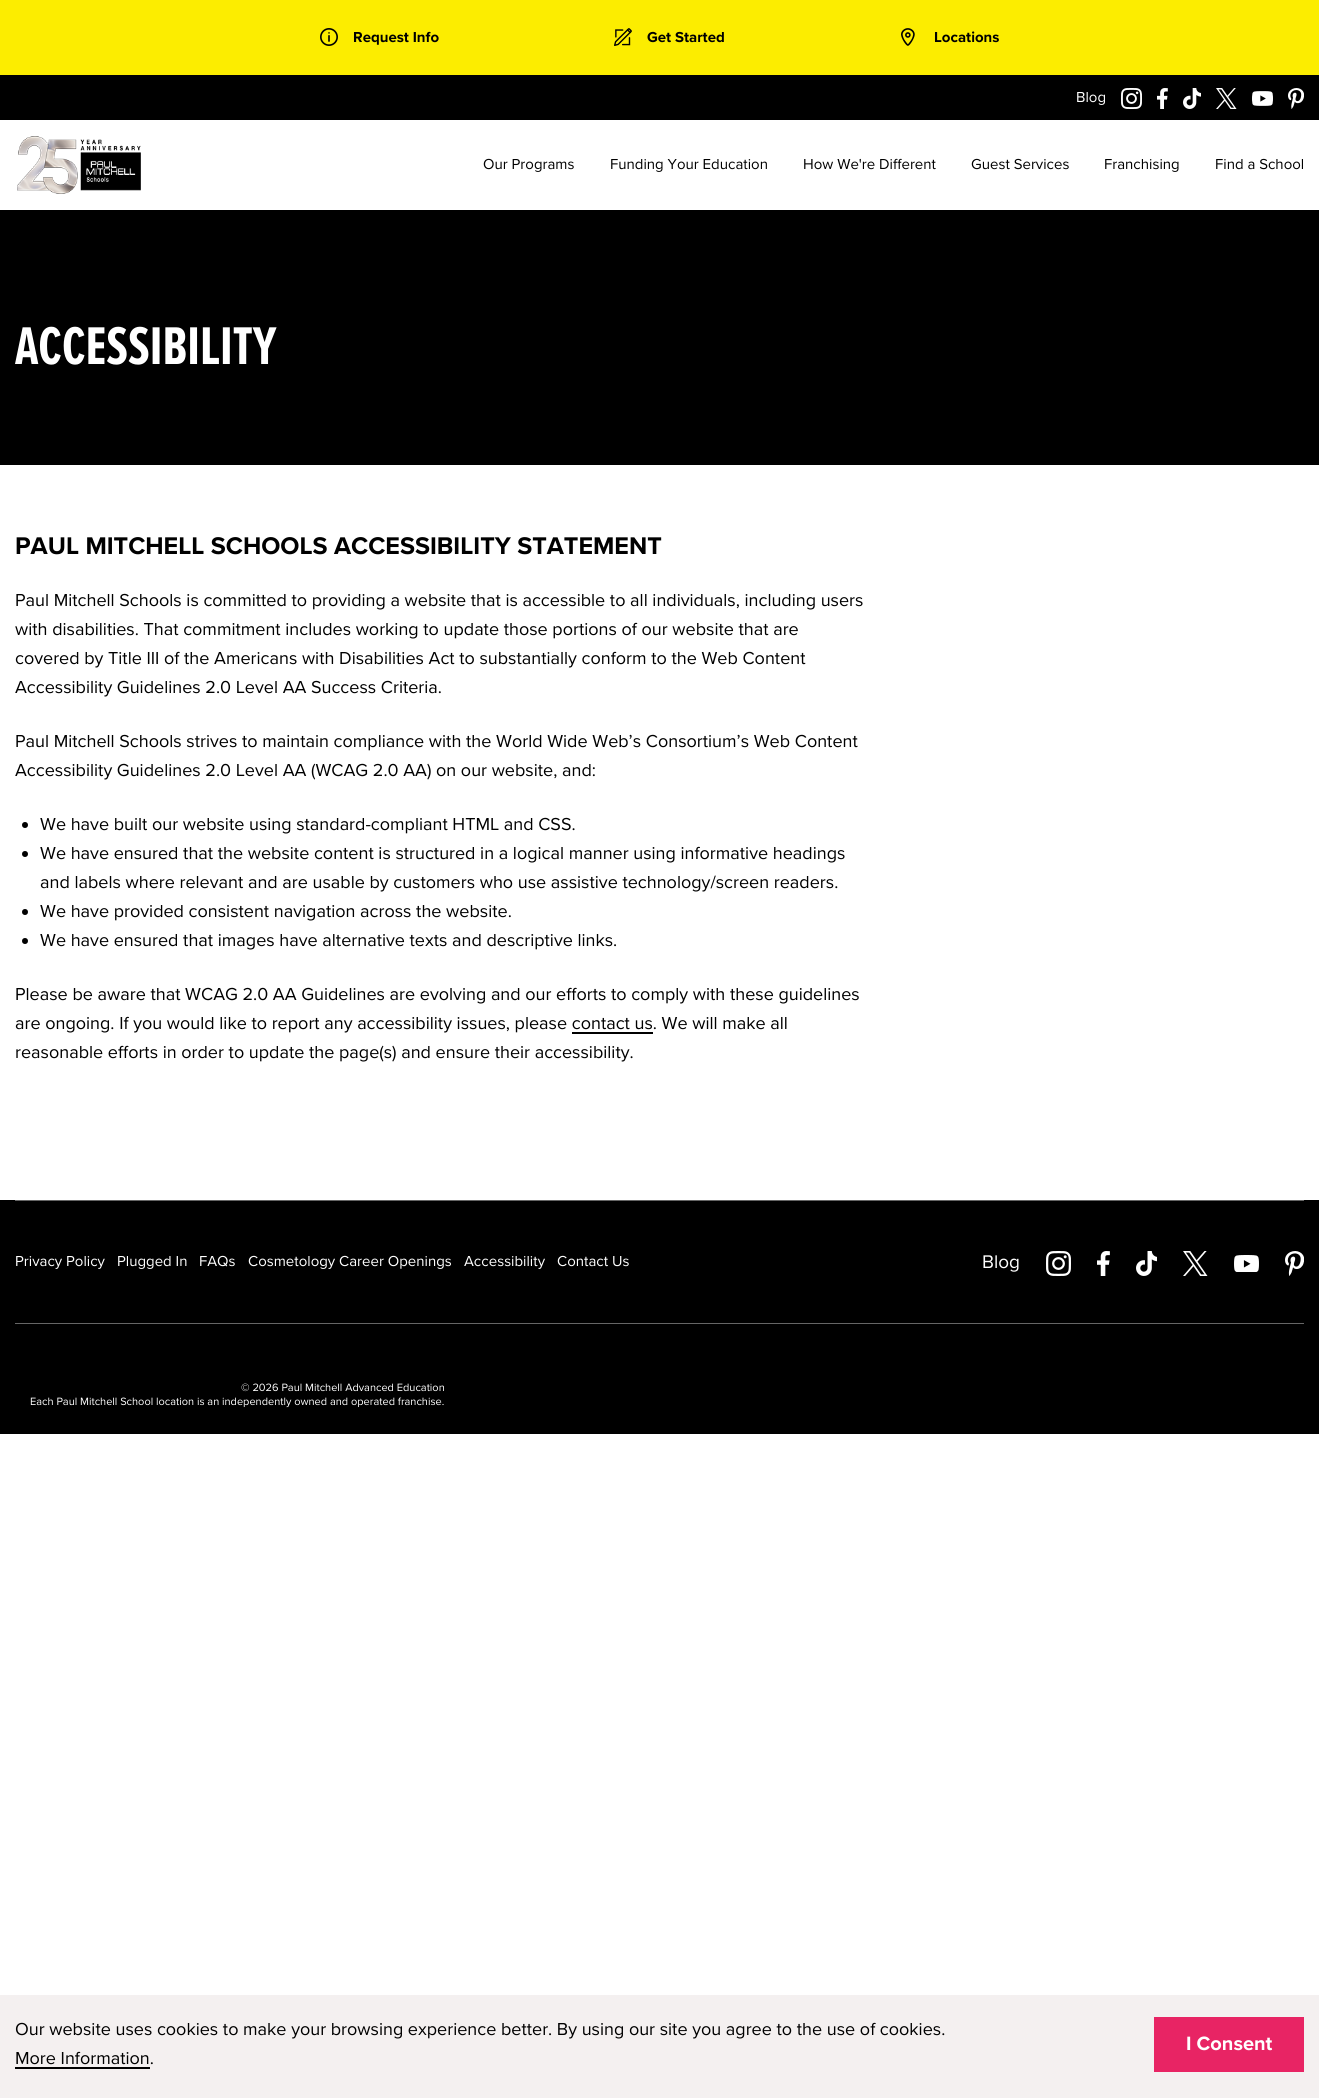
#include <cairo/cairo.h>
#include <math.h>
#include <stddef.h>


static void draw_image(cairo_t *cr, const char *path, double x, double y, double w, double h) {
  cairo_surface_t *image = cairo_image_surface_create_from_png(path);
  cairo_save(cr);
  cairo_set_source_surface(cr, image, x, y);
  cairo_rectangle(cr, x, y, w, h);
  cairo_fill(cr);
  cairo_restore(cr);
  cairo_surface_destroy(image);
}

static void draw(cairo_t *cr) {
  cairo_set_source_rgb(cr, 1, 1, 1);
  cairo_paint(cr);
  cairo_set_source_rgb(cr, 252 / 255.0, 237 / 255.0, 0);
  cairo_rectangle(cr, 0, 0, 1319, 75);
  cairo_fill(cr);
  draw_image(cr, "images/1.png", 320, 28, 18, 18);
  draw_image(cr, "images/2.png", 614, 28, 18, 18);
  draw_image(cr, "images/3.png", 901, 28, 14, 18);
  cairo_set_source_rgb(cr, 0, 0, 0);
  cairo_rectangle(cr, 0, 75, 1319, 45);
  cairo_fill(cr);
  draw_image(cr, "images/4.png", 1121, 88, 21, 21);
  draw_image(cr, "images/5.png", 1157, 88, 11, 21);
  draw_image(cr, "images/6.png", 1183, 88, 18, 21);
  draw_image(cr, "images/7.png", 1216, 88, 21, 21);
  draw_image(cr, "images/8.png", 1252, 91, 21, 15);
  draw_image(cr, "images/9.png", 1288, 88, 16, 21);
  draw_image(cr, "images/10.png", 17, 136, 124, 58);
  cairo_rectangle(cr, 0, 210, 1319, 255);
  cairo_fill(cr);
  cairo_arc(cr, 25, 825, 3, 0, 2 * M_PI);
  cairo_fill(cr);
  cairo_arc(cr, 25, 854, 3, 0, 2 * M_PI);
  cairo_fill(cr);
  cairo_arc(cr, 25, 912, 3, 0, 2 * M_PI);
  cairo_fill(cr);
  cairo_arc(cr, 25, 941, 3, 0, 2 * M_PI);
  cairo_fill(cr);
  cairo_rectangle(cr, 572, 1032, 81, 2);
  cairo_fill(cr);
  cairo_rectangle(cr, 0, 1200, 1319, 234);
  cairo_fill(cr);
  cairo_set_source_rgb(cr, 102 / 255.0, 102 / 255.0, 102 / 255.0);
  cairo_rectangle(cr, 15, 1200, 1289, 1);
  cairo_fill(cr);
  cairo_rectangle(cr, 15, 1323, 1289, 1);
  cairo_fill(cr);
  draw_image(cr, "images/11.png", 1046, 1251, 25, 25);
  draw_image(cr, "images/12.png", 1097, 1251, 13, 25);
  draw_image(cr, "images/13.png", 1136, 1251, 21, 25);
  draw_image(cr, "images/14.png", 1183, 1251, 25, 25);
  draw_image(cr, "images/15.png", 1234, 1255, 25, 17);
  draw_image(cr, "images/16.png", 1285, 1251, 19, 25);
  cairo_set_source_rgb(cr, 244 / 255.0, 240 / 255.0, 240 / 255.0);
  cairo_rectangle(cr, 0, 1995, 1319, 103);
  cairo_fill(cr);
  cairo_set_source_rgb(cr, 0, 0, 0);
  cairo_rectangle(cr, 15, 2067, 135, 2);
  cairo_fill(cr);
  cairo_set_source_rgb(cr, 232 / 255.0, 36 / 255.0, 100 / 255.0);
  cairo_rectangle(cr, 1154, 2017, 150, 55);
  cairo_fill(cr);
  cairo_select_font_face(cr, "Proxima Nova", CAIRO_FONT_SLANT_NORMAL, CAIRO_FONT_WEIGHT_BOLD);
  cairo_set_font_size(cr, 15);
  cairo_set_source_rgb(cr, 0, 0, 0);
  cairo_move_to(cr, 353, 42);
  cairo_show_text(cr, "Request Info");
  cairo_move_to(cr, 647, 42);
  cairo_show_text(cr, "Get Started");
  cairo_move_to(cr, 934, 42);
  cairo_show_text(cr, "Locations");
  cairo_select_font_face(cr, "Proxima Nova", CAIRO_FONT_SLANT_NORMAL, CAIRO_FONT_WEIGHT_NORMAL);
  cairo_set_source_rgb(cr, 1, 1, 1);
  cairo_move_to(cr, 1076, 102);
  cairo_show_text(cr, "Blog");
  cairo_set_source_rgb(cr, 0, 0, 0);
  cairo_move_to(cr, 483, 169);
  cairo_show_text(cr, "Our Programs");
  cairo_move_to(cr, 610, 169);
  cairo_show_text(cr, "Funding Your Education");
  cairo_move_to(cr, 803, 169);
  cairo_show_text(cr, "How We're Different");
  cairo_move_to(cr, 971, 169);
  cairo_show_text(cr, "Guest Services");
  cairo_move_to(cr, 1104, 169);
  cairo_show_text(cr, "Franchising");
  cairo_move_to(cr, 1215, 169);
  cairo_show_text(cr, "Find a School");
  cairo_select_font_face(cr, "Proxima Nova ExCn", CAIRO_FONT_SLANT_NORMAL, CAIRO_FONT_WEIGHT_BOLD);
  cairo_set_font_size(cr, 55);
  cairo_set_source_rgb(cr, 1, 1, 1);
  cairo_move_to(cr, 15, 364);
  cairo_show_text(cr, "ACCESSIBILITY");
  cairo_select_font_face(cr, "Proxima Nova", CAIRO_FONT_SLANT_NORMAL, CAIRO_FONT_WEIGHT_BOLD);
  cairo_set_font_size(cr, 25);
  cairo_set_source_rgb(cr, 0, 0, 0);
  cairo_move_to(cr, 15, 554);
  cairo_show_text(cr, "PAUL MITCHELL SCHOOLS ACCESSIBILITY STATEMENT");
  cairo_select_font_face(cr, "Proxima Nova", CAIRO_FONT_SLANT_NORMAL, CAIRO_FONT_WEIGHT_NORMAL);
  cairo_set_font_size(cr, 18);
  cairo_move_to(cr, 15, 606);
  cairo_show_text(cr, "Paul Mitchell Schools is committed to providing a website that is accessible to all individuals, including users");
  cairo_move_to(cr, 15, 635);
  cairo_show_text(cr, "with disabilities. That commitment includes working to update those portions of our website that are");
  cairo_move_to(cr, 15, 664);
  cairo_show_text(cr, "covered by Title III of the Americans with Disabilities Act to substantially conform to the Web Content");
  cairo_move_to(cr, 15, 693);
  cairo_show_text(cr, "Accessibility Guidelines 2.0 Level AA Success Criteria.");
  cairo_move_to(cr, 15, 747);
  cairo_show_text(cr, "Paul Mitchell Schools strives to maintain compliance with the World Wide Web’s Consortium’s Web Content");
  cairo_move_to(cr, 15, 776);
  cairo_show_text(cr, "Accessibility Guidelines 2.0 Level AA (WCAG 2.0 AA) on our website, and:");
  cairo_move_to(cr, 40, 830);
  cairo_show_text(cr, "We have built our website using standard-compliant HTML and CSS.");
  cairo_move_to(cr, 40, 859);
  cairo_show_text(cr, "We have ensured that the website content is structured in a logical manner using informative headings");
  cairo_move_to(cr, 40, 888);
  cairo_show_text(cr, "and labels where relevant and are usable by customers who use assistive technology/screen readers.");
  cairo_move_to(cr, 40, 917);
  cairo_show_text(cr, "We have provided consistent navigation across the website.");
  cairo_move_to(cr, 40, 946);
  cairo_show_text(cr, "We have ensured that images have alternative texts and descriptive links.");
  cairo_move_to(cr, 15, 1000);
  cairo_show_text(cr, "Please be aware that WCAG 2.0 AA Guidelines are evolving and our efforts to comply with these guidelines");
  cairo_move_to(cr, 15, 1029);
  cairo_show_text(cr, "are ongoing. If you would like to report any accessibility issues, please contact us. We will make all");
  cairo_move_to(cr, 15, 1058);
  cairo_show_text(cr, "reasonable efforts in order to update the page(s) and ensure their accessibility.");
  cairo_set_font_size(cr, 15);
  cairo_set_source_rgb(cr, 1, 1, 1);
  cairo_move_to(cr, 15, 1266);
  cairo_show_text(cr, "Privacy Policy");
  cairo_move_to(cr, 117, 1266);
  cairo_show_text(cr, "Plugged In");
  cairo_move_to(cr, 199, 1266);
  cairo_show_text(cr, "FAQs");
  cairo_move_to(cr, 248, 1266);
  cairo_show_text(cr, "Cosmetology Career Openings");
  cairo_move_to(cr, 464, 1266);
  cairo_show_text(cr, "Accessibility");
  cairo_move_to(cr, 557, 1266);
  cairo_show_text(cr, "Contact Us");
  cairo_set_font_size(cr, 19);
  cairo_move_to(cr, 982, 1268);
  cairo_show_text(cr, "Blog");
  cairo_set_font_size(cr, 11);
  cairo_move_to(cr, 241, 1391);
  cairo_show_text(cr, "© 2026 Paul Mitchell Advanced Education");
  cairo_move_to(cr, 30, 1405);
  cairo_show_text(cr, "Each Paul Mitchell School location is an independently owned and operated franchise.");
  cairo_set_font_size(cr, 18);
  cairo_set_source_rgb(cr, 0, 0, 0);
  cairo_move_to(cr, 15, 2035);
  cairo_show_text(cr, "Our website uses cookies to make your browsing experience better. By using our site you agree to the use of cookies.");
  cairo_move_to(cr, 15, 2064);
  cairo_show_text(cr, "More Information.");
  cairo_select_font_face(cr, "Proxima Nova", CAIRO_FONT_SLANT_NORMAL, CAIRO_FONT_WEIGHT_BOLD);
  cairo_set_font_size(cr, 20);
  cairo_set_source_rgb(cr, 1, 1, 1);
  cairo_move_to(cr, 1186, 2050);
  cairo_show_text(cr, "I Consent");
}

int main(void) {
  cairo_surface_t *surface = cairo_image_surface_create(CAIRO_FORMAT_RGB24, 1319, 2098);
  cairo_t *cr = cairo_create(surface);
  cairo_font_options_t *options = cairo_font_options_create();
  cairo_font_options_set_hint_metrics(options, CAIRO_HINT_METRICS_OFF);
  cairo_font_options_set_hint_style(options, CAIRO_HINT_STYLE_NONE);
  cairo_set_font_options(cr, options);
  cairo_set_miter_limit(cr, 4);
  draw(cr);
  cairo_surface_write_to_png(surface, "out.png");
  cairo_font_options_destroy(options);
  cairo_destroy(cr);
  cairo_surface_destroy(surface);
  return 0;
}
